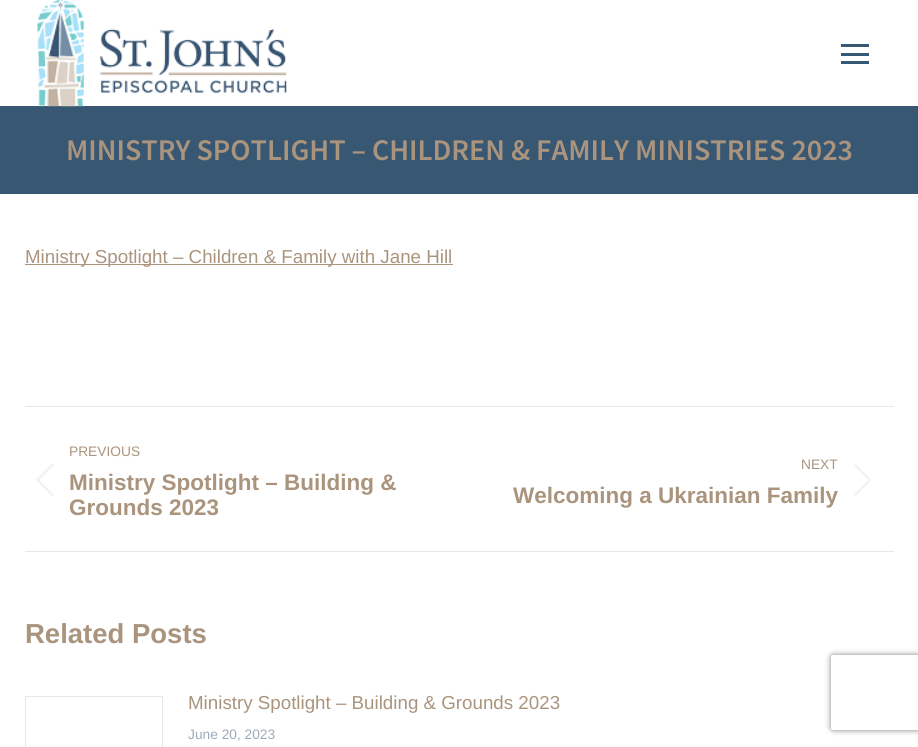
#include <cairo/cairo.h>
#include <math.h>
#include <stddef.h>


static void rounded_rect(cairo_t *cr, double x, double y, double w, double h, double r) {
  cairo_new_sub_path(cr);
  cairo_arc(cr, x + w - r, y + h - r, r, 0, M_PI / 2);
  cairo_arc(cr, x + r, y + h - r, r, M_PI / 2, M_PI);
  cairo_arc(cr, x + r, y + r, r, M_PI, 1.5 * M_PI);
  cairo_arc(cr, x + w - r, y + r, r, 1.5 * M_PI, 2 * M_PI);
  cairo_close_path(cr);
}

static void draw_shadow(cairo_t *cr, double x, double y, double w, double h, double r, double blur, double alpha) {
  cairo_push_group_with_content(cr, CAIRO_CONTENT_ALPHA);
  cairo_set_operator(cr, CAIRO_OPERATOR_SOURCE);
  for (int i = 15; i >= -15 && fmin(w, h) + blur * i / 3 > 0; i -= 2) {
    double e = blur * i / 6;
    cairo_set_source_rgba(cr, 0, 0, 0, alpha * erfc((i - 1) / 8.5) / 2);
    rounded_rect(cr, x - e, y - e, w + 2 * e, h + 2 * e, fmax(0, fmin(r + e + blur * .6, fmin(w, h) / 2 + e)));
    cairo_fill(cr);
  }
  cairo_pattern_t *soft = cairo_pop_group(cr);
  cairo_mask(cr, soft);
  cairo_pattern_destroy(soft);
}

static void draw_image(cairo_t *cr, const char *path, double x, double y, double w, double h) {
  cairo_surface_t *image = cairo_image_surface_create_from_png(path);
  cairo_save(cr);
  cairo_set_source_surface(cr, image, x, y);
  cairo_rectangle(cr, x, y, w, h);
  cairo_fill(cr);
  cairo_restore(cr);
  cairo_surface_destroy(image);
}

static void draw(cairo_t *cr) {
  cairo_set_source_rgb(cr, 1, 1, 1);
  cairo_paint(cr);
  cairo_set_source_rgb(cr, 56 / 255.0, 87 / 255.0, 115 / 255.0);
  cairo_rectangle(cr, 0, 106, 918, 88);
  cairo_fill(cr);
  draw_image(cr, "images/1.png", 37, 0, 250, 107);
  cairo_rectangle(cr, 841, 44, 28, 3);
  cairo_fill(cr);
  cairo_rectangle(cr, 841, 53, 28, 3);
  cairo_fill(cr);
  cairo_rectangle(cr, 841, 61, 28, 3);
  cairo_fill(cr);
  cairo_set_source_rgb(cr, 170 / 255.0, 148 / 255.0, 125 / 255.0);
  cairo_rectangle(cr, 25, 264, 428, 1);
  cairo_fill(cr);
  cairo_set_source_rgb(cr, 231 / 255.0, 231 / 255.0, 231 / 255.0);
  cairo_rectangle(cr, 25, 406, 869, 1);
  cairo_fill(cr);
  cairo_rectangle(cr, 25, 551, 869, 1);
  cairo_fill(cr);
  draw_image(cr, "images/2.png", 36, 464, 18, 32);
  draw_image(cr, "images/3.png", 853, 463, 18, 33);
  cairo_rectangle(cr, 25.5, 696.5, 137, 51);
  cairo_set_line_width(cr, 1);
  cairo_stroke(cr);
  cairo_save(cr);
  cairo_set_fill_rule(cr, CAIRO_FILL_RULE_EVEN_ODD);
  cairo_new_path(cr);
  cairo_move_to(cr, 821, 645);
  cairo_line_to(cr, 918, 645);
  cairo_line_to(cr, 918, 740);
  cairo_line_to(cr, 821, 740);
  cairo_close_path(cr);
  cairo_move_to(cr, 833.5, 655);
  cairo_line_to(cr, 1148.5, 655);
  cairo_curve_to(cr, 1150, 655, 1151, 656, 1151, 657.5);
  cairo_line_to(cr, 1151, 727.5);
  cairo_curve_to(cr, 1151, 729, 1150, 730, 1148.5, 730);
  cairo_line_to(cr, 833.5, 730);
  cairo_curve_to(cr, 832, 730, 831, 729, 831, 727.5);
  cairo_line_to(cr, 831, 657.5);
  cairo_curve_to(cr, 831, 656, 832, 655, 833.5, 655);
  cairo_close_path(cr);
  cairo_clip(cr);
  cairo_set_source_rgb(cr, 128 / 255.0, 128 / 255.0, 128 / 255.0);
  draw_shadow(cr, 831, 655, 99, 75, 2.5, 3, 1);
  cairo_restore(cr);
  cairo_select_font_face(cr, "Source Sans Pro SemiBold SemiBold", CAIRO_FONT_SLANT_NORMAL, CAIRO_FONT_WEIGHT_NORMAL);
  cairo_set_font_size(cr, 30);
  cairo_set_source_rgb(cr, 170 / 255.0, 148 / 255.0, 125 / 255.0);
  cairo_move_to(cr, 66, 160);
  cairo_show_text(cr, "MINISTRY SPOTLIGHT – CHILDREN & FAMILY MINISTRIES 2023");
  cairo_select_font_face(cr, "Liberation Sans", CAIRO_FONT_SLANT_NORMAL, CAIRO_FONT_WEIGHT_NORMAL);
  cairo_set_font_size(cr, 18.75);
  cairo_move_to(cr, 25, 263);
  cairo_show_text(cr, "Ministry Spotlight – Children & Family with Jane Hill");
  cairo_set_font_size(cr, 13.75);
  cairo_move_to(cr, 69, 456);
  cairo_show_text(cr, "PREVIOUS");
  cairo_select_font_face(cr, "Liberation Sans", CAIRO_FONT_SLANT_NORMAL, CAIRO_FONT_WEIGHT_BOLD);
  cairo_set_font_size(cr, 22.5);
  cairo_move_to(cr, 69, 490);
  cairo_show_text(cr, "Ministry Spotlight – Building &");
  cairo_move_to(cr, 69, 515);
  cairo_show_text(cr, "Grounds 2023");
  cairo_select_font_face(cr, "Liberation Sans", CAIRO_FONT_SLANT_NORMAL, CAIRO_FONT_WEIGHT_NORMAL);
  cairo_set_font_size(cr, 13.75);
  cairo_move_to(cr, 801, 469);
  cairo_show_text(cr, "NEXT");
  cairo_select_font_face(cr, "Liberation Sans", CAIRO_FONT_SLANT_NORMAL, CAIRO_FONT_WEIGHT_BOLD);
  cairo_set_font_size(cr, 22.5);
  cairo_move_to(cr, 513, 503);
  cairo_show_text(cr, "Welcoming a Ukrainian Family");
  cairo_set_font_size(cr, 27.5);
  cairo_move_to(cr, 25, 643);
  cairo_show_text(cr, "Related Posts");
  cairo_select_font_face(cr, "Liberation Sans", CAIRO_FONT_SLANT_NORMAL, CAIRO_FONT_WEIGHT_NORMAL);
  cairo_set_font_size(cr, 18.75);
  cairo_move_to(cr, 188, 709);
  cairo_show_text(cr, "Ministry Spotlight – Building & Grounds 2023");
  cairo_set_font_size(cr, 13.75);
  cairo_set_source_rgb(cr, 156 / 255.0, 171 / 255.0, 185 / 255.0);
  cairo_move_to(cr, 188, 739);
  cairo_show_text(cr, "June 20, 2023");
}

int main(void) {
  cairo_surface_t *surface = cairo_image_surface_create(CAIRO_FORMAT_RGB24, 918, 747);
  cairo_t *cr = cairo_create(surface);
  cairo_font_options_t *options = cairo_font_options_create();
  cairo_font_options_set_hint_metrics(options, CAIRO_HINT_METRICS_OFF);
  cairo_font_options_set_hint_style(options, CAIRO_HINT_STYLE_NONE);
  cairo_set_font_options(cr, options);
  cairo_set_miter_limit(cr, 4);
  draw(cr);
  cairo_surface_write_to_png(surface, "out.png");
  cairo_font_options_destroy(options);
  cairo_destroy(cr);
  cairo_surface_destroy(surface);
  return 0;
}
